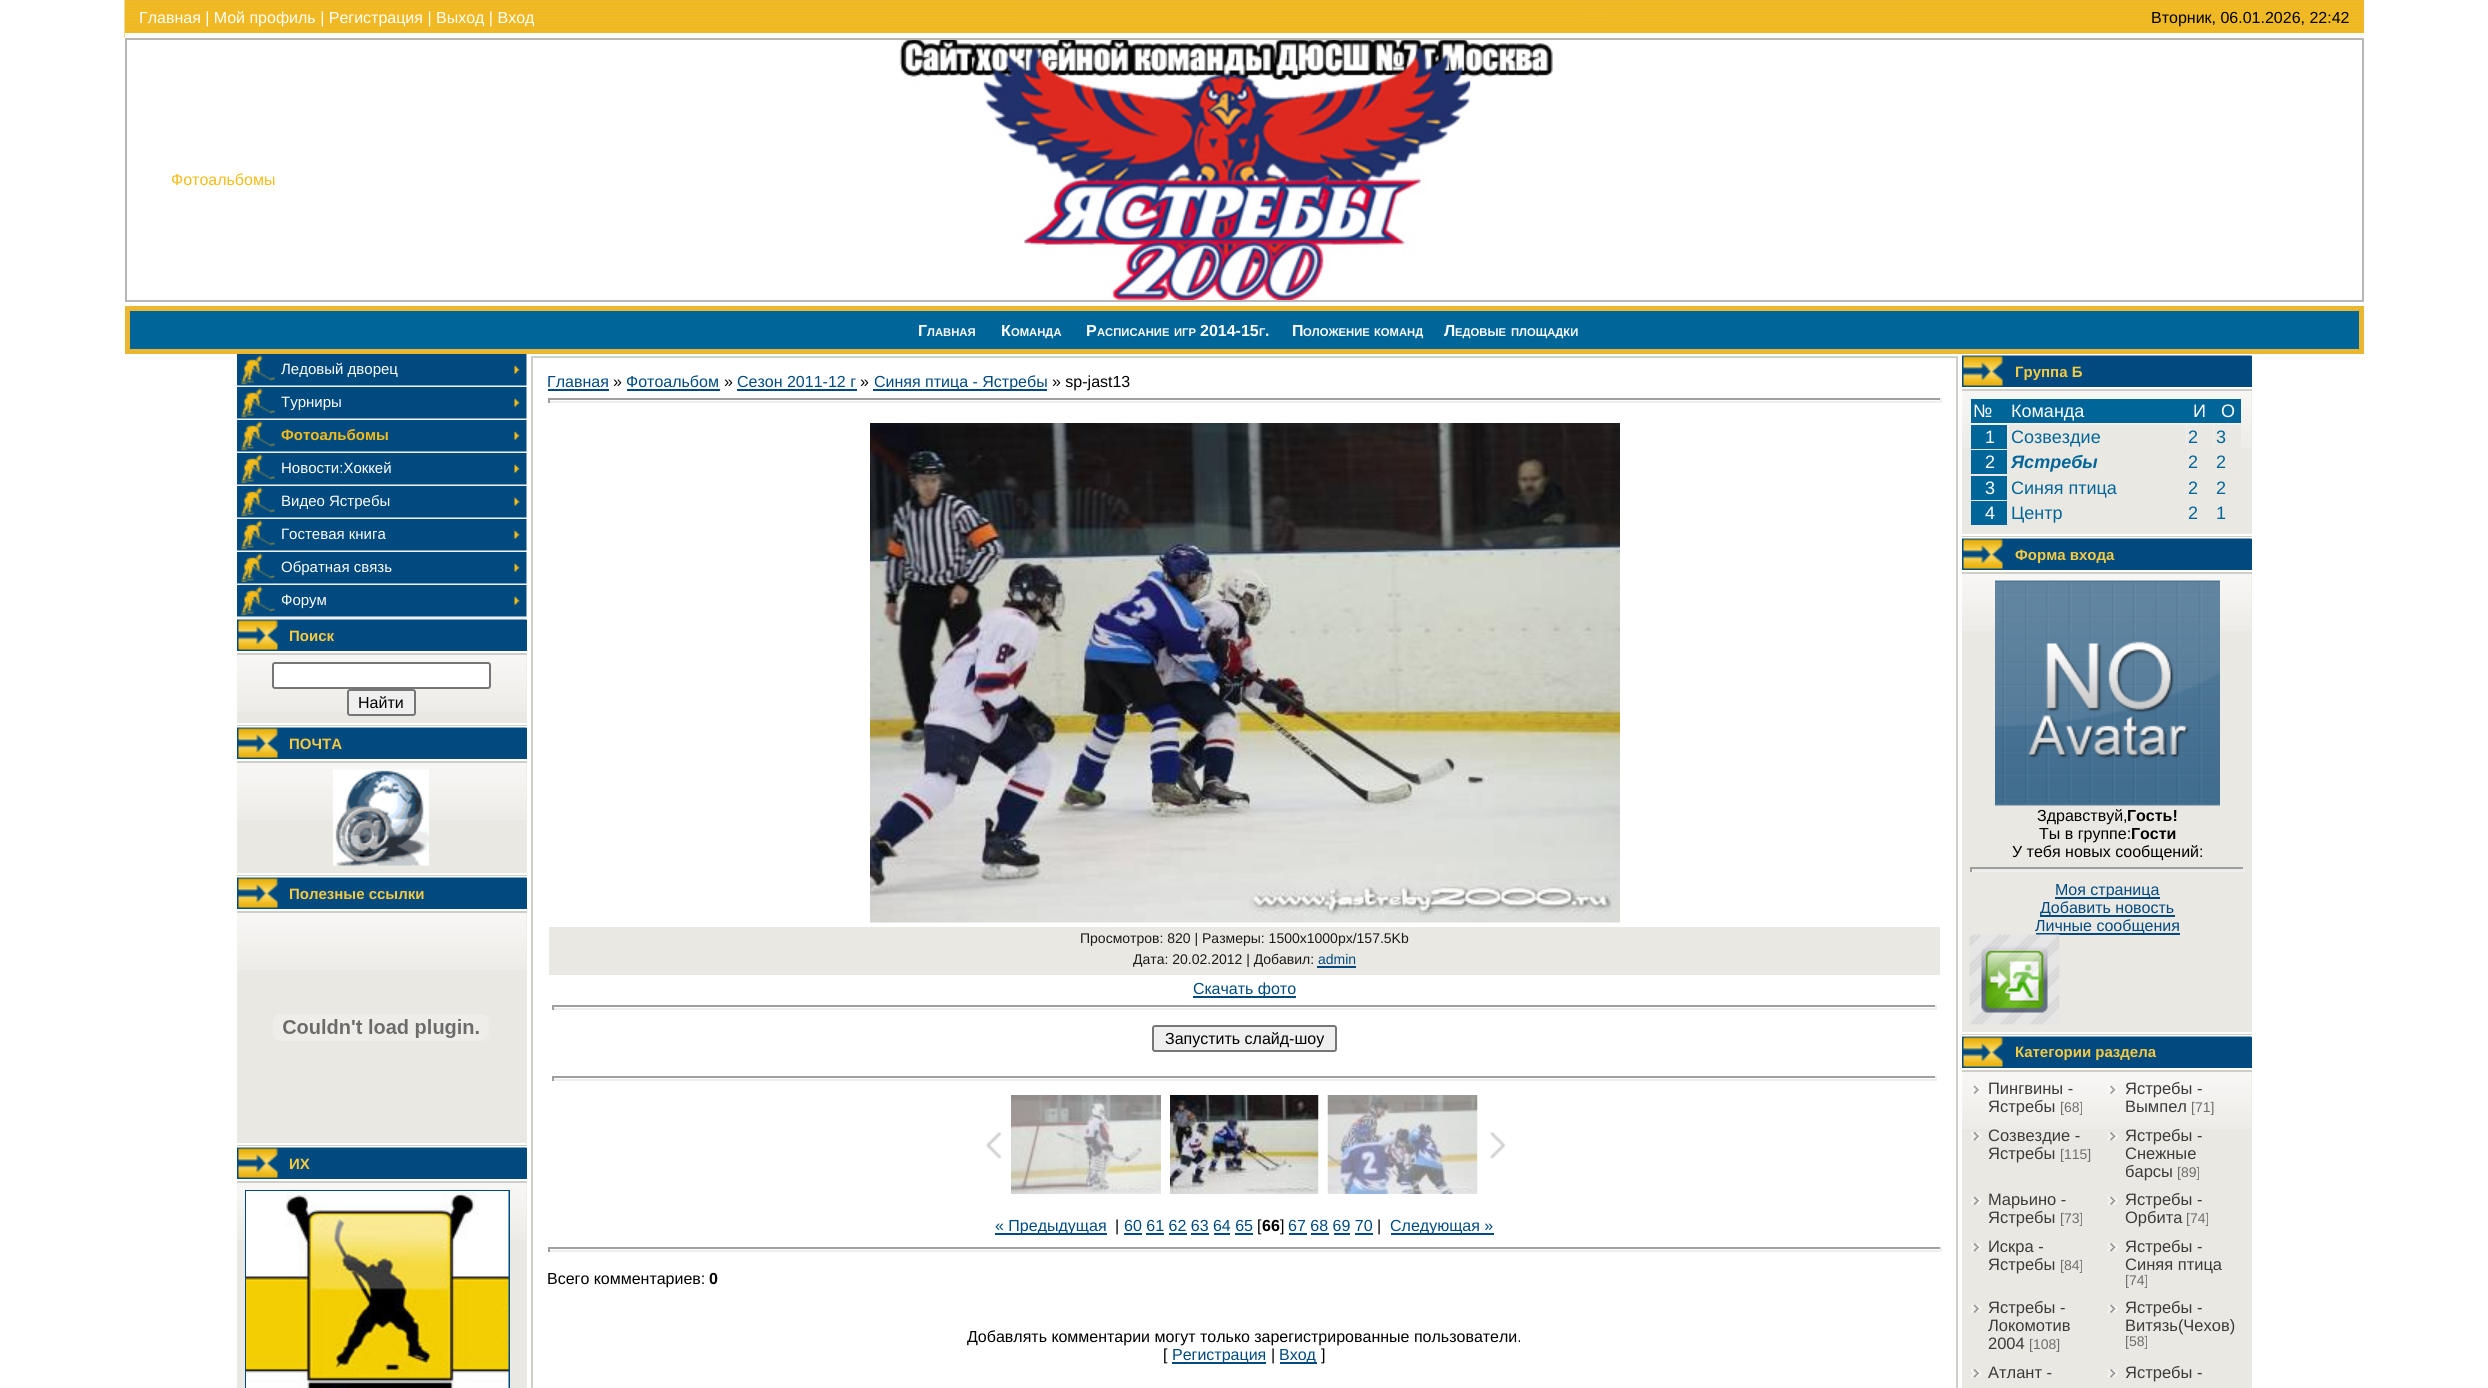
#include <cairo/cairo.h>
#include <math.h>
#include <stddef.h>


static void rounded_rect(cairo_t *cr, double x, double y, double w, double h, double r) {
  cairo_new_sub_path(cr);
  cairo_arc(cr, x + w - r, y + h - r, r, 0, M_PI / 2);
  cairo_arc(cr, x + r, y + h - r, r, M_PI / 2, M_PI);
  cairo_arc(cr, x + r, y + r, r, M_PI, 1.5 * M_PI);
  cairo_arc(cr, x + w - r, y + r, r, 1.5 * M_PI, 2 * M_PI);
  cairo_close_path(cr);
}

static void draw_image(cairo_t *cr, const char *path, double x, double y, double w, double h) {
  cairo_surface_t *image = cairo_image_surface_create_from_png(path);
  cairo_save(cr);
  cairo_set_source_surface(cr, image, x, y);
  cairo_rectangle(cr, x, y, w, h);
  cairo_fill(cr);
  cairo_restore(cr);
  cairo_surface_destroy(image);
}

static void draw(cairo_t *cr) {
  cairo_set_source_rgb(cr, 1, 1, 1);
  cairo_paint(cr);
  draw_image(cr, "images/1.png", 124, 0, 1457, 38);
  cairo_set_source_rgb(cr, 1, 1, 1);
  cairo_rectangle(cr, 125, 33, 1456, 5);
  cairo_fill(cr);
  cairo_set_source_rgb(cr, 235 / 255.0, 182 / 255.0, 48 / 255.0);
  cairo_rectangle(cr, 1581, 0, 783, 1);
  cairo_fill(cr);
  draw_image(cr, "images/2.png", 1581, 1, 783, 32);
  draw_image(cr, "images/3.png", 899, 40, 654, 260);
  cairo_rectangle(cr, 126, 39, 2237, 262);
  cairo_set_source_rgb(cr, 185 / 255.0, 183 / 255.0, 179 / 255.0);
  cairo_stroke(cr);
  cairo_set_source_rgb(cr, 0, 102 / 255.0, 153 / 255.0);
  cairo_rectangle(cr, 127.5, 308.5, 2234, 43);
  cairo_fill_preserve(cr);
  cairo_set_source_rgb(cr, 235 / 255.0, 182 / 255.0, 48 / 255.0);
  cairo_set_line_width(cr, 5);
  cairo_stroke(cr);
  draw_image(cr, "images/4.png", 237, 354, 290, 32);
  cairo_set_source_rgb(cr, 240 / 255.0, 240 / 255.0, 240 / 255.0);
  cairo_rectangle(cr, 237, 386, 290, 2);
  cairo_fill(cr);
  draw_image(cr, "images/5.png", 237, 387, 290, 32);
  cairo_rectangle(cr, 237, 419, 290, 2);
  cairo_fill(cr);
  draw_image(cr, "images/5.png", 237, 420, 290, 32);
  cairo_rectangle(cr, 237, 452, 290, 2);
  cairo_fill(cr);
  draw_image(cr, "images/5.png", 237, 453, 290, 32);
  cairo_rectangle(cr, 237, 485, 290, 2);
  cairo_fill(cr);
  draw_image(cr, "images/5.png", 237, 486, 290, 32);
  cairo_rectangle(cr, 237, 518, 290, 2);
  cairo_fill(cr);
  draw_image(cr, "images/5.png", 237, 519, 290, 32);
  cairo_rectangle(cr, 237, 551, 290, 2);
  cairo_fill(cr);
  draw_image(cr, "images/5.png", 237, 552, 290, 32);
  cairo_rectangle(cr, 237, 584, 290, 2);
  cairo_fill(cr);
  draw_image(cr, "images/5.png", 237, 585, 290, 32);
  cairo_rectangle(cr, 237, 617, 290, 2);
  cairo_fill(cr);
  cairo_set_source_rgb(cr, 208 / 255.0, 206 / 255.0, 201 / 255.0);
  cairo_rectangle(cr, 237, 725, 290, 1);
  cairo_fill(cr);
  cairo_set_source_rgb(cr, 0, 74 / 255.0, 128 / 255.0);
  cairo_rectangle(cr, 526, 620, 1, 31);
  cairo_fill(cr);
  draw_image(cr, "images/6.png", 237, 619, 290, 32);
  cairo_set_source_rgb(cr, 234 / 255.0, 232 / 255.0, 227 / 255.0);
  cairo_rectangle(cr, 237, 655, 290, 68);
  cairo_fill(cr);
  draw_image(cr, "images/7.png", 237, 655, 290, 57);
  cairo_set_source_rgb(cr, 208 / 255.0, 206 / 255.0, 201 / 255.0);
  cairo_rectangle(cr, 237, 653, 290, 2);
  cairo_fill(cr);
  cairo_set_source_rgb(cr, 1, 1, 1);
  rounded_rect(cr, 273, 663, 217, 25, 2);
  cairo_fill_preserve(cr);
  cairo_set_source_rgb(cr, 118 / 255.0, 118 / 255.0, 118 / 255.0);
  cairo_set_line_width(cr, 2);
  cairo_stroke(cr);
  cairo_set_source_rgb(cr, 239 / 255.0, 239 / 255.0, 239 / 255.0);
  rounded_rect(cr, 348, 690, 67, 25, 2);
  cairo_fill_preserve(cr);
  cairo_set_source_rgb(cr, 118 / 255.0, 118 / 255.0, 118 / 255.0);
  cairo_stroke(cr);
  cairo_set_source_rgb(cr, 208 / 255.0, 206 / 255.0, 201 / 255.0);
  cairo_rectangle(cr, 237, 875, 290, 1);
  cairo_fill(cr);
  cairo_set_source_rgb(cr, 0, 74 / 255.0, 128 / 255.0);
  cairo_rectangle(cr, 526, 728, 1, 31);
  cairo_fill(cr);
  draw_image(cr, "images/8.png", 237, 727, 290, 32);
  cairo_set_source_rgb(cr, 234 / 255.0, 232 / 255.0, 227 / 255.0);
  cairo_rectangle(cr, 237, 763, 290, 110);
  cairo_fill(cr);
  draw_image(cr, "images/7.png", 237, 763, 290, 57);
  cairo_set_source_rgb(cr, 208 / 255.0, 206 / 255.0, 201 / 255.0);
  cairo_rectangle(cr, 237, 761, 290, 2);
  cairo_fill(cr);
  draw_image(cr, "images/9.png", 333, 769, 96, 97);
  cairo_rectangle(cr, 237, 1145, 290, 1);
  cairo_fill(cr);
  cairo_set_source_rgb(cr, 0, 74 / 255.0, 128 / 255.0);
  cairo_rectangle(cr, 526, 878, 1, 31);
  cairo_fill(cr);
  draw_image(cr, "images/10.png", 237, 877, 290, 32);
  cairo_set_source_rgb(cr, 234 / 255.0, 232 / 255.0, 227 / 255.0);
  cairo_rectangle(cr, 237, 913, 290, 230);
  cairo_fill(cr);
  draw_image(cr, "images/7.png", 237, 913, 290, 57);
  cairo_set_source_rgb(cr, 208 / 255.0, 206 / 255.0, 201 / 255.0);
  cairo_rectangle(cr, 237, 911, 290, 2);
  cairo_fill(cr);
  draw_image(cr, "images/11.png", 273, 1014, 216, 27);
  cairo_set_source_rgb(cr, 0, 74 / 255.0, 128 / 255.0);
  cairo_rectangle(cr, 526, 1148, 1, 31);
  cairo_fill(cr);
  draw_image(cr, "images/12.png", 237, 1147, 290, 32);
  cairo_set_source_rgb(cr, 234 / 255.0, 232 / 255.0, 227 / 255.0);
  cairo_rectangle(cr, 237, 1183, 290, 205);
  cairo_fill(cr);
  draw_image(cr, "images/7.png", 237, 1183, 290, 57);
  cairo_set_source_rgb(cr, 208 / 255.0, 206 / 255.0, 201 / 255.0);
  cairo_rectangle(cr, 237, 1181, 290, 2);
  cairo_fill(cr);
  cairo_rectangle(cr, 246, 1191, 263, 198);
  cairo_set_source_rgb(cr, 0, 74 / 255.0, 128 / 255.0);
  cairo_stroke(cr);
  draw_image(cr, "images/13.png", 246, 1191, 263, 197);
  cairo_rectangle(cr, 532, 357, 1425, 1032);
  cairo_set_source_rgb(cr, 208 / 255.0, 206 / 255.0, 201 / 255.0);
  cairo_stroke(cr);
  cairo_set_source_rgb(cr, 0, 74 / 255.0, 128 / 255.0);
  cairo_rectangle(cr, 548, 389, 61, 2);
  cairo_fill(cr);
  cairo_rectangle(cr, 627, 389, 93, 2);
  cairo_fill(cr);
  cairo_rectangle(cr, 737, 389, 120, 2);
  cairo_fill(cr);
  cairo_rectangle(cr, 873, 389, 174, 2);
  cairo_fill(cr);
  cairo_set_source_rgb(cr, 159 / 255.0, 159 / 255.0, 159 / 255.0);
  cairo_rectangle(cr, 548, 398, 1393, 2);
  cairo_fill(cr);
  cairo_set_source_rgb(cr, 238 / 255.0, 238 / 255.0, 238 / 255.0);
  cairo_rectangle(cr, 1940, 398, 2, 5);
  cairo_fill(cr);
  cairo_rectangle(cr, 548, 401, 1393, 2);
  cairo_fill(cr);
  cairo_set_source_rgb(cr, 159 / 255.0, 159 / 255.0, 159 / 255.0);
  cairo_rectangle(cr, 548, 398, 2, 5);
  cairo_fill(cr);
  draw_image(cr, "images/14.png", 870, 423, 750, 500);
  cairo_set_source_rgb(cr, 234 / 255.0, 232 / 255.0, 227 / 255.0);
  cairo_rectangle(cr, 549, 927, 1391, 48);
  cairo_fill(cr);
  cairo_set_source_rgb(cr, 0, 74 / 255.0, 128 / 255.0);
  cairo_rectangle(cr, 1317, 966, 39, 2);
  cairo_fill(cr);
  cairo_rectangle(cr, 1193, 996, 103, 2);
  cairo_fill(cr);
  cairo_set_source_rgb(cr, 159 / 255.0, 159 / 255.0, 159 / 255.0);
  cairo_rectangle(cr, 552, 1005, 1385, 2);
  cairo_fill(cr);
  cairo_set_source_rgb(cr, 238 / 255.0, 238 / 255.0, 238 / 255.0);
  cairo_rectangle(cr, 1935, 1005, 2, 5);
  cairo_fill(cr);
  cairo_rectangle(cr, 552, 1008, 1385, 2);
  cairo_fill(cr);
  cairo_set_source_rgb(cr, 159 / 255.0, 159 / 255.0, 159 / 255.0);
  cairo_rectangle(cr, 552, 1005, 2, 5);
  cairo_fill(cr);
  cairo_set_source_rgb(cr, 239 / 255.0, 239 / 255.0, 239 / 255.0);
  rounded_rect(cr, 1153, 1026, 183, 25, 2);
  cairo_fill_preserve(cr);
  cairo_set_source_rgb(cr, 118 / 255.0, 118 / 255.0, 118 / 255.0);
  cairo_stroke(cr);
  cairo_set_source_rgb(cr, 159 / 255.0, 159 / 255.0, 159 / 255.0);
  cairo_rectangle(cr, 552, 1076, 1385, 2);
  cairo_fill(cr);
  cairo_set_source_rgb(cr, 238 / 255.0, 238 / 255.0, 238 / 255.0);
  cairo_rectangle(cr, 1935, 1076, 2, 5);
  cairo_fill(cr);
  cairo_rectangle(cr, 552, 1079, 1385, 2);
  cairo_fill(cr);
  cairo_set_source_rgb(cr, 159 / 255.0, 159 / 255.0, 159 / 255.0);
  cairo_rectangle(cr, 552, 1076, 2, 5);
  cairo_fill(cr);
  draw_image(cr, "images/15.png", 985, 1132, 17, 27);
  draw_image(cr, "images/16.png", 1011, 1095, 150, 99);
  draw_image(cr, "images/17.png", 1170, 1095, 149, 99);
  draw_image(cr, "images/18.png", 1327, 1095, 151, 99);
  draw_image(cr, "images/19.png", 1489, 1132, 17, 27);
  cairo_set_source_rgb(cr, 0, 74 / 255.0, 128 / 255.0);
  cairo_rectangle(cr, 995, 1233, 112, 2);
  cairo_fill(cr);
  cairo_rectangle(cr, 1124, 1233, 18, 2);
  cairo_fill(cr);
  cairo_rectangle(cr, 1289, 1233, 18, 2);
  cairo_fill(cr);
  cairo_rectangle(cr, 1391, 1233, 103, 2);
  cairo_fill(cr);
  cairo_rectangle(cr, 1146, 1233, 18, 2);
  cairo_fill(cr);
  cairo_rectangle(cr, 1169, 1233, 18, 2);
  cairo_fill(cr);
  cairo_rectangle(cr, 1191, 1233, 18, 2);
  cairo_fill(cr);
  cairo_rectangle(cr, 1214, 1233, 16, 2);
  cairo_fill(cr);
  cairo_rectangle(cr, 1235, 1233, 18, 2);
  cairo_fill(cr);
  cairo_rectangle(cr, 1311, 1233, 18, 2);
  cairo_fill(cr);
  cairo_rectangle(cr, 1334, 1233, 16, 2);
  cairo_fill(cr);
  cairo_rectangle(cr, 1355, 1233, 18, 2);
  cairo_fill(cr);
  cairo_set_source_rgb(cr, 159 / 255.0, 159 / 255.0, 159 / 255.0);
  cairo_rectangle(cr, 548, 1247, 1393, 2);
  cairo_fill(cr);
  cairo_set_source_rgb(cr, 238 / 255.0, 238 / 255.0, 238 / 255.0);
  cairo_rectangle(cr, 1940, 1247, 2, 5);
  cairo_fill(cr);
  cairo_rectangle(cr, 548, 1250, 1393, 2);
  cairo_fill(cr);
  cairo_set_source_rgb(cr, 159 / 255.0, 159 / 255.0, 159 / 255.0);
  cairo_rectangle(cr, 548, 1247, 2, 5);
  cairo_fill(cr);
  cairo_set_source_rgb(cr, 0, 74 / 255.0, 128 / 255.0);
  cairo_rectangle(cr, 1172, 1362, 94, 2);
  cairo_fill(cr);
  cairo_rectangle(cr, 1280, 1362, 37, 2);
  cairo_fill(cr);
  cairo_set_source_rgb(cr, 208 / 255.0, 206 / 255.0, 201 / 255.0);
  cairo_rectangle(cr, 1962, 536, 290, 1);
  cairo_fill(cr);
  cairo_set_source_rgb(cr, 0, 74 / 255.0, 128 / 255.0);
  cairo_rectangle(cr, 2251, 356, 1, 31);
  cairo_fill(cr);
  draw_image(cr, "images/20.png", 1962, 355, 290, 32);
  cairo_set_source_rgb(cr, 234 / 255.0, 232 / 255.0, 227 / 255.0);
  cairo_rectangle(cr, 1962, 391, 290, 143);
  cairo_fill(cr);
  draw_image(cr, "images/7.png", 1962, 391, 290, 57);
  cairo_set_source_rgb(cr, 208 / 255.0, 206 / 255.0, 201 / 255.0);
  cairo_rectangle(cr, 1962, 389, 290, 2);
  cairo_fill(cr);
  cairo_set_source_rgb(cr, 0, 102 / 255.0, 153 / 255.0);
  cairo_rectangle(cr, 1971, 399, 270, 24);
  cairo_fill(cr);
  cairo_rectangle(cr, 1971, 425, 36, 24);
  cairo_fill(cr);
  cairo_set_source_rgb(cr, 234 / 255.0, 232 / 255.0, 227 / 255.0);
  cairo_rectangle(cr, 2009, 425, 177, 23);
  cairo_fill(cr);
  cairo_rectangle(cr, 2187, 425, 26, 23);
  cairo_fill(cr);
  cairo_rectangle(cr, 2214, 425, 27, 23);
  cairo_fill(cr);
  cairo_set_source_rgb(cr, 0, 102 / 255.0, 153 / 255.0);
  cairo_rectangle(cr, 1971, 450, 36, 24);
  cairo_fill(cr);
  cairo_rectangle(cr, 1971, 476, 36, 24);
  cairo_fill(cr);
  cairo_rectangle(cr, 1971, 501, 36, 24);
  cairo_fill(cr);
  cairo_set_source_rgb(cr, 208 / 255.0, 206 / 255.0, 201 / 255.0);
  cairo_rectangle(cr, 1962, 1034, 290, 1);
  cairo_fill(cr);
  cairo_set_source_rgb(cr, 0, 74 / 255.0, 128 / 255.0);
  cairo_rectangle(cr, 2251, 539, 1, 31);
  cairo_fill(cr);
  draw_image(cr, "images/21.png", 1962, 538, 290, 32);
  cairo_set_source_rgb(cr, 234 / 255.0, 232 / 255.0, 227 / 255.0);
  cairo_rectangle(cr, 1962, 574, 290, 458);
  cairo_fill(cr);
  draw_image(cr, "images/7.png", 1962, 574, 290, 57);
  cairo_set_source_rgb(cr, 208 / 255.0, 206 / 255.0, 201 / 255.0);
  cairo_rectangle(cr, 1962, 572, 290, 2);
  cairo_fill(cr);
  draw_image(cr, "images/22.png", 1995, 580, 225, 226);
  cairo_set_source_rgb(cr, 159 / 255.0, 159 / 255.0, 159 / 255.0);
  cairo_rectangle(cr, 1970, 867, 274, 2);
  cairo_fill(cr);
  cairo_set_source_rgb(cr, 238 / 255.0, 238 / 255.0, 238 / 255.0);
  cairo_rectangle(cr, 2243, 867, 2, 5);
  cairo_fill(cr);
  cairo_rectangle(cr, 1970, 870, 274, 2);
  cairo_fill(cr);
  cairo_set_source_rgb(cr, 159 / 255.0, 159 / 255.0, 159 / 255.0);
  cairo_rectangle(cr, 1970, 867, 2, 5);
  cairo_fill(cr);
  cairo_set_source_rgb(cr, 0, 74 / 255.0, 128 / 255.0);
  cairo_rectangle(cr, 2055, 897, 105, 2);
  cairo_fill(cr);
  cairo_rectangle(cr, 2040, 915, 135, 2);
  cairo_fill(cr);
  cairo_rectangle(cr, 2036, 933, 144, 2);
  cairo_fill(cr);
  cairo_rectangle(cr, 2251, 1037, 1, 31);
  cairo_fill(cr);
  draw_image(cr, "images/24.png", 1962, 1036, 290, 32);
  cairo_set_source_rgb(cr, 234 / 255.0, 232 / 255.0, 227 / 255.0);
  cairo_rectangle(cr, 1962, 1072, 290, 316);
  cairo_fill(cr);
  draw_image(cr, "images/7.png", 1962, 1072, 290, 57);
  cairo_set_source_rgb(cr, 208 / 255.0, 206 / 255.0, 201 / 255.0);
  cairo_rectangle(cr, 1962, 1070, 290, 2);
  cairo_fill(cr);
  draw_image(cr, "images/25.png", 1971, 1085, 11, 9);
  draw_image(cr, "images/26.png", 2107, 1085, 11, 9);
  draw_image(cr, "images/27.png", 1971, 1132, 11, 9);
  draw_image(cr, "images/28.png", 2107, 1132, 11, 9);
  draw_image(cr, "images/29.png", 1971, 1196, 11, 9);
  draw_image(cr, "images/30.png", 2107, 1196, 11, 9);
  draw_image(cr, "images/27.png", 1971, 1243, 11, 9);
  draw_image(cr, "images/28.png", 2107, 1243, 11, 9);
  draw_image(cr, "images/29.png", 1971, 1304, 11, 9);
  draw_image(cr, "images/30.png", 2107, 1304, 11, 9);
  draw_image(cr, "images/27.png", 1971, 1369, 11, 9);
  draw_image(cr, "images/28.png", 2107, 1369, 11, 9);
  cairo_select_font_face(cr, "Liberation Sans", CAIRO_FONT_SLANT_NORMAL, CAIRO_FONT_WEIGHT_NORMAL);
  cairo_set_font_size(cr, 16);
  cairo_set_source_rgb(cr, 1, 1, 1);
  cairo_move_to(cr, 139, 23);
  cairo_show_text(cr, "Главная | Мой профиль | Регистрация | Выход | Вход");
  cairo_set_source_rgb(cr, 0, 0, 0);
  cairo_move_to(cr, 2151, 23);
  cairo_show_text(cr, "Вторник, 06.01.2026, 22:42");
  cairo_set_source_rgb(cr, 245 / 255.0, 188 / 255.0, 25 / 255.0);
  cairo_move_to(cr, 171, 185);
  cairo_show_text(cr, "Фотоальбомы");
  cairo_select_font_face(cr, "Liberation Sans", CAIRO_FONT_SLANT_NORMAL, CAIRO_FONT_WEIGHT_BOLD);
  cairo_set_source_rgb(cr, 1, 1, 1);
  cairo_move_to(cr, 918, 336);
  cairo_show_text(cr, "Г");
  cairo_set_font_size(cr, 11.25);
  cairo_move_to(cr, 927, 336);
  cairo_show_text(cr, "ЛАВНАЯ");
  cairo_set_font_size(cr, 16);
  cairo_move_to(cr, 1001, 336);
  cairo_show_text(cr, "К");
  cairo_set_font_size(cr, 11.25);
  cairo_move_to(cr, 1011, 336);
  cairo_show_text(cr, "ОМАНДА");
  cairo_set_font_size(cr, 16);
  cairo_move_to(cr, 1086, 336);
  cairo_show_text(cr, "Р");
  cairo_set_font_size(cr, 11.25);
  cairo_move_to(cr, 1097, 336);
  cairo_show_text(cr, "АСПИСАНИЕ");
  cairo_move_to(cr, 1174, 336);
  cairo_show_text(cr, "ИГР");
  cairo_set_font_size(cr, 16);
  cairo_move_to(cr, 1200, 336);
  cairo_show_text(cr, "2014-15");
  cairo_set_font_size(cr, 11.25);
  cairo_move_to(cr, 1259, 336);
  cairo_show_text(cr, "Г");
  cairo_set_font_size(cr, 16);
  cairo_move_to(cr, 1265, 336);
  cairo_show_text(cr, ".");
  cairo_move_to(cr, 1292, 336);
  cairo_show_text(cr, "П");
  cairo_set_font_size(cr, 11.25);
  cairo_move_to(cr, 1303, 336);
  cairo_show_text(cr, "ОЛОЖЕНИЕ");
  cairo_move_to(cr, 1374, 336);
  cairo_show_text(cr, "КОМАНД");
  cairo_set_font_size(cr, 16);
  cairo_move_to(cr, 1444, 336);
  cairo_show_text(cr, "Л");
  cairo_set_font_size(cr, 11.25);
  cairo_move_to(cr, 1455, 336);
  cairo_show_text(cr, "ЕДОВЫЕ");
  cairo_move_to(cr, 1511, 336);
  cairo_show_text(cr, "ПЛОЩАДКИ");
  cairo_select_font_face(cr, "Liberation Sans", CAIRO_FONT_SLANT_NORMAL, CAIRO_FONT_WEIGHT_NORMAL);
  cairo_set_font_size(cr, 15);
  cairo_move_to(cr, 281, 374);
  cairo_show_text(cr, "Ледовый дворец");
  cairo_move_to(cr, 281, 407);
  cairo_show_text(cr, "Турниры");
  cairo_select_font_face(cr, "Liberation Sans", CAIRO_FONT_SLANT_NORMAL, CAIRO_FONT_WEIGHT_BOLD);
  cairo_set_source_rgb(cr, 245 / 255.0, 188 / 255.0, 25 / 255.0);
  cairo_move_to(cr, 281, 440);
  cairo_show_text(cr, "Фотоальбомы");
  cairo_select_font_face(cr, "Liberation Sans", CAIRO_FONT_SLANT_NORMAL, CAIRO_FONT_WEIGHT_NORMAL);
  cairo_set_source_rgb(cr, 1, 1, 1);
  cairo_move_to(cr, 281, 473);
  cairo_show_text(cr, "Новости:Хоккей");
  cairo_move_to(cr, 281, 506);
  cairo_show_text(cr, "Видео Ястребы");
  cairo_move_to(cr, 281, 539);
  cairo_show_text(cr, "Гостевая книга");
  cairo_move_to(cr, 281, 572);
  cairo_show_text(cr, "Обратная связь");
  cairo_move_to(cr, 281, 605);
  cairo_show_text(cr, "Форум");
  cairo_select_font_face(cr, "Liberation Sans", CAIRO_FONT_SLANT_NORMAL, CAIRO_FONT_WEIGHT_BOLD);
  cairo_set_source_rgb(cr, 246 / 255.0, 202 / 255.0, 66 / 255.0);
  cairo_move_to(cr, 289, 641);
  cairo_show_text(cr, "Поиск");
  cairo_select_font_face(cr, "Liberation Sans", CAIRO_FONT_SLANT_NORMAL, CAIRO_FONT_WEIGHT_NORMAL);
  cairo_set_font_size(cr, 16);
  cairo_set_source_rgb(cr, 0, 0, 0);
  cairo_move_to(cr, 358, 708);
  cairo_show_text(cr, "Найти");
  cairo_select_font_face(cr, "Liberation Sans", CAIRO_FONT_SLANT_NORMAL, CAIRO_FONT_WEIGHT_BOLD);
  cairo_set_font_size(cr, 15);
  cairo_set_source_rgb(cr, 246 / 255.0, 202 / 255.0, 66 / 255.0);
  cairo_move_to(cr, 289, 749);
  cairo_show_text(cr, "ПОЧТА");
  cairo_move_to(cr, 289, 899);
  cairo_show_text(cr, "Полезные ссылки");
  cairo_move_to(cr, 289, 1169);
  cairo_show_text(cr, "ИХ");
  cairo_select_font_face(cr, "Liberation Sans", CAIRO_FONT_SLANT_NORMAL, CAIRO_FONT_WEIGHT_NORMAL);
  cairo_set_font_size(cr, 16);
  cairo_set_source_rgb(cr, 0, 74 / 255.0, 128 / 255.0);
  cairo_move_to(cr, 547, 387);
  cairo_show_text(cr, "Главная");
  cairo_set_source_rgb(cr, 0, 0, 0);
  cairo_move_to(cr, 613, 387);
  cairo_show_text(cr, "»");
  cairo_set_source_rgb(cr, 0, 74 / 255.0, 128 / 255.0);
  cairo_move_to(cr, 626, 387);
  cairo_show_text(cr, "Фотоальбом");
  cairo_set_source_rgb(cr, 0, 0, 0);
  cairo_move_to(cr, 724, 387);
  cairo_show_text(cr, "»");
  cairo_set_source_rgb(cr, 0, 74 / 255.0, 128 / 255.0);
  cairo_move_to(cr, 737, 387);
  cairo_show_text(cr, "Сезон 2011-12 г");
  cairo_set_source_rgb(cr, 0, 0, 0);
  cairo_move_to(cr, 860, 387);
  cairo_show_text(cr, "»");
  cairo_set_source_rgb(cr, 0, 74 / 255.0, 128 / 255.0);
  cairo_move_to(cr, 874, 387);
  cairo_show_text(cr, "Синяя птица - Ястребы");
  cairo_set_source_rgb(cr, 0, 0, 0);
  cairo_move_to(cr, 1052, 387);
  cairo_show_text(cr, "» sp-jast13");
  cairo_set_font_size(cr, 14);
  cairo_set_source_rgb(cr, 26 / 255.0, 26 / 255.0, 26 / 255.0);
  cairo_move_to(cr, 1080, 943);
  cairo_show_text(cr, "Просмотров: 820 | Размеры: 1500x1000px/157.5Kb");
  cairo_move_to(cr, 1133, 964);
  cairo_show_text(cr, "Дата: 20.02.2012 | Добавил:");
  cairo_set_source_rgb(cr, 0, 74 / 255.0, 128 / 255.0);
  cairo_move_to(cr, 1318, 964);
  cairo_show_text(cr, "admin");
  cairo_set_font_size(cr, 16);
  cairo_move_to(cr, 1193, 994);
  cairo_show_text(cr, "Скачать фото");
  cairo_set_source_rgb(cr, 0, 0, 0);
  cairo_move_to(cr, 1165, 1044);
  cairo_show_text(cr, "Запустить слайд-шоу");
  cairo_set_source_rgb(cr, 0, 74 / 255.0, 128 / 255.0);
  cairo_move_to(cr, 995, 1231);
  cairo_show_text(cr, "« Предыдущая");
  cairo_set_source_rgb(cr, 0, 0, 0);
  cairo_move_to(cr, 1115, 1231);
  cairo_show_text(cr, "|");
  cairo_set_source_rgb(cr, 0, 74 / 255.0, 128 / 255.0);
  cairo_move_to(cr, 1124, 1231);
  cairo_show_text(cr, "60 61 62 63 64 65");
  cairo_set_source_rgb(cr, 0, 0, 0);
  cairo_move_to(cr, 1257, 1231);
  cairo_show_text(cr, "[");
  cairo_select_font_face(cr, "Liberation Sans", CAIRO_FONT_SLANT_NORMAL, CAIRO_FONT_WEIGHT_BOLD);
  cairo_move_to(cr, 1262, 1231);
  cairo_show_text(cr, "66");
  cairo_select_font_face(cr, "Liberation Sans", CAIRO_FONT_SLANT_NORMAL, CAIRO_FONT_WEIGHT_NORMAL);
  cairo_move_to(cr, 1280, 1231);
  cairo_show_text(cr, "]");
  cairo_set_source_rgb(cr, 0, 74 / 255.0, 128 / 255.0);
  cairo_move_to(cr, 1288, 1231);
  cairo_show_text(cr, "67 68 69 70");
  cairo_set_source_rgb(cr, 0, 0, 0);
  cairo_move_to(cr, 1377, 1231);
  cairo_show_text(cr, "|");
  cairo_set_source_rgb(cr, 0, 74 / 255.0, 128 / 255.0);
  cairo_move_to(cr, 1390, 1231);
  cairo_show_text(cr, "Следующая »");
  cairo_set_source_rgb(cr, 0, 0, 0);
  cairo_move_to(cr, 547, 1284);
  cairo_show_text(cr, "Всего комментариев:");
  cairo_select_font_face(cr, "Liberation Sans", CAIRO_FONT_SLANT_NORMAL, CAIRO_FONT_WEIGHT_BOLD);
  cairo_move_to(cr, 709, 1284);
  cairo_show_text(cr, "0");
  cairo_select_font_face(cr, "Liberation Sans", CAIRO_FONT_SLANT_NORMAL, CAIRO_FONT_WEIGHT_NORMAL);
  cairo_move_to(cr, 967, 1342);
  cairo_show_text(cr, "Добавлять комментарии могут только зарегистрированные пользователи.");
  cairo_move_to(cr, 1163, 1360);
  cairo_show_text(cr, "[");
  cairo_set_source_rgb(cr, 0, 74 / 255.0, 128 / 255.0);
  cairo_move_to(cr, 1172, 1360);
  cairo_show_text(cr, "Регистрация");
  cairo_set_source_rgb(cr, 0, 0, 0);
  cairo_move_to(cr, 1271, 1360);
  cairo_show_text(cr, "|");
  cairo_set_source_rgb(cr, 0, 74 / 255.0, 128 / 255.0);
  cairo_move_to(cr, 1279, 1360);
  cairo_show_text(cr, "Вход");
  cairo_set_source_rgb(cr, 0, 0, 0);
  cairo_move_to(cr, 1321, 1360);
  cairo_show_text(cr, "]");
  cairo_select_font_face(cr, "Liberation Sans", CAIRO_FONT_SLANT_NORMAL, CAIRO_FONT_WEIGHT_BOLD);
  cairo_set_font_size(cr, 15);
  cairo_set_source_rgb(cr, 246 / 255.0, 202 / 255.0, 66 / 255.0);
  cairo_move_to(cr, 2015, 377);
  cairo_show_text(cr, "Группа Б");
  cairo_select_font_face(cr, "Liberation Sans", CAIRO_FONT_SLANT_NORMAL, CAIRO_FONT_WEIGHT_NORMAL);
  cairo_set_font_size(cr, 18);
  cairo_set_source_rgb(cr, 1, 1, 1);
  cairo_move_to(cr, 1973, 417);
  cairo_show_text(cr, "№");
  cairo_move_to(cr, 2011, 417);
  cairo_show_text(cr, "Команда");
  cairo_move_to(cr, 2193, 417);
  cairo_show_text(cr, "И");
  cairo_move_to(cr, 2221, 417);
  cairo_show_text(cr, "О");
  cairo_move_to(cr, 1985, 443);
  cairo_show_text(cr, "1");
  cairo_set_source_rgb(cr, 0, 102 / 255.0, 153 / 255.0);
  cairo_move_to(cr, 2011, 443);
  cairo_show_text(cr, "Созвездие");
  cairo_move_to(cr, 2188, 443);
  cairo_show_text(cr, "2");
  cairo_move_to(cr, 2216, 443);
  cairo_show_text(cr, "3");
  cairo_set_source_rgb(cr, 1, 1, 1);
  cairo_move_to(cr, 1985, 468);
  cairo_show_text(cr, "2");
  cairo_select_font_face(cr, "Liberation Sans", CAIRO_FONT_SLANT_ITALIC, CAIRO_FONT_WEIGHT_BOLD);
  cairo_set_source_rgb(cr, 0, 102 / 255.0, 153 / 255.0);
  cairo_move_to(cr, 2011, 468);
  cairo_show_text(cr, "Ястребы");
  cairo_select_font_face(cr, "Liberation Sans", CAIRO_FONT_SLANT_NORMAL, CAIRO_FONT_WEIGHT_NORMAL);
  cairo_move_to(cr, 2188, 468);
  cairo_show_text(cr, "2");
  cairo_move_to(cr, 2216, 468);
  cairo_show_text(cr, "2");
  cairo_set_source_rgb(cr, 1, 1, 1);
  cairo_move_to(cr, 1985, 494);
  cairo_show_text(cr, "3");
  cairo_set_source_rgb(cr, 0, 102 / 255.0, 153 / 255.0);
  cairo_move_to(cr, 2011, 494);
  cairo_show_text(cr, "Синяя птица");
  cairo_move_to(cr, 2188, 494);
  cairo_show_text(cr, "2");
  cairo_move_to(cr, 2216, 494);
  cairo_show_text(cr, "2");
  cairo_set_source_rgb(cr, 1, 1, 1);
  cairo_move_to(cr, 1985, 519);
  cairo_show_text(cr, "4");
  cairo_set_source_rgb(cr, 0, 102 / 255.0, 153 / 255.0);
  cairo_move_to(cr, 2011, 519);
  cairo_show_text(cr, "Центр");
  cairo_move_to(cr, 2188, 519);
  cairo_show_text(cr, "2");
  cairo_move_to(cr, 2216, 519);
  cairo_show_text(cr, "1");
  cairo_select_font_face(cr, "Liberation Sans", CAIRO_FONT_SLANT_NORMAL, CAIRO_FONT_WEIGHT_BOLD);
  cairo_set_font_size(cr, 15);
  cairo_set_source_rgb(cr, 246 / 255.0, 202 / 255.0, 66 / 255.0);
  cairo_move_to(cr, 2015, 560);
  cairo_show_text(cr, "Форма входа");
  cairo_select_font_face(cr, "Liberation Sans", CAIRO_FONT_SLANT_NORMAL, CAIRO_FONT_WEIGHT_NORMAL);
  cairo_set_font_size(cr, 16);
  cairo_set_source_rgb(cr, 0, 0, 0);
  cairo_move_to(cr, 2037, 821);
  cairo_show_text(cr, "Здравствуй,");
  cairo_select_font_face(cr, "Liberation Sans", CAIRO_FONT_SLANT_NORMAL, CAIRO_FONT_WEIGHT_BOLD);
  cairo_move_to(cr, 2127, 821);
  cairo_show_text(cr, "Гость!");
  cairo_select_font_face(cr, "Liberation Sans", CAIRO_FONT_SLANT_NORMAL, CAIRO_FONT_WEIGHT_NORMAL);
  cairo_move_to(cr, 2039, 839);
  cairo_show_text(cr, "Ты в группе:");
  cairo_select_font_face(cr, "Liberation Sans", CAIRO_FONT_SLANT_NORMAL, CAIRO_FONT_WEIGHT_BOLD);
  cairo_move_to(cr, 2131, 839);
  cairo_show_text(cr, "Гости");
  cairo_select_font_face(cr, "Liberation Sans", CAIRO_FONT_SLANT_NORMAL, CAIRO_FONT_WEIGHT_NORMAL);
  cairo_move_to(cr, 2012, 857);
  cairo_show_text(cr, "У тебя новых сообщений:");
  cairo_set_source_rgb(cr, 0, 74 / 255.0, 128 / 255.0);
  cairo_move_to(cr, 2055, 895);
  cairo_show_text(cr, "Моя страница");
  cairo_move_to(cr, 2040, 913);
  cairo_show_text(cr, "Добавить новость");
  cairo_move_to(cr, 2035, 931);
  cairo_show_text(cr, "Личные сообщения");
  draw_image(cr, "images/23.png", 1969, 934, 91, 91);
  cairo_select_font_face(cr, "Liberation Sans", CAIRO_FONT_SLANT_NORMAL, CAIRO_FONT_WEIGHT_BOLD);
  cairo_set_font_size(cr, 15);
  cairo_set_source_rgb(cr, 246 / 255.0, 202 / 255.0, 66 / 255.0);
  cairo_move_to(cr, 2015, 1057);
  cairo_show_text(cr, "Категории раздела");
  cairo_select_font_face(cr, "Liberation Sans", CAIRO_FONT_SLANT_NORMAL, CAIRO_FONT_WEIGHT_NORMAL);
  cairo_set_font_size(cr, 16.5);
  cairo_set_source_rgb(cr, 59 / 255.0, 59 / 255.0, 59 / 255.0);
  cairo_move_to(cr, 1988, 1094);
  cairo_show_text(cr, "Пингвины -");
  cairo_move_to(cr, 1988, 1112);
  cairo_show_text(cr, "Ястребы");
  cairo_set_font_size(cr, 14);
  cairo_set_source_rgb(cr, 110 / 255.0, 110 / 255.0, 110 / 255.0);
  cairo_move_to(cr, 2060, 1112);
  cairo_show_text(cr, "[68]");
  cairo_set_font_size(cr, 16.5);
  cairo_set_source_rgb(cr, 59 / 255.0, 59 / 255.0, 59 / 255.0);
  cairo_move_to(cr, 2125, 1094);
  cairo_show_text(cr, "Ястребы -");
  cairo_move_to(cr, 2125, 1112);
  cairo_show_text(cr, "Вымпел");
  cairo_set_font_size(cr, 14);
  cairo_set_source_rgb(cr, 110 / 255.0, 110 / 255.0, 110 / 255.0);
  cairo_move_to(cr, 2191, 1112);
  cairo_show_text(cr, "[71]");
  cairo_set_font_size(cr, 16.5);
  cairo_set_source_rgb(cr, 59 / 255.0, 59 / 255.0, 59 / 255.0);
  cairo_move_to(cr, 1988, 1141);
  cairo_show_text(cr, "Созвездие -");
  cairo_move_to(cr, 1988, 1159);
  cairo_show_text(cr, "Ястребы");
  cairo_set_font_size(cr, 14);
  cairo_set_source_rgb(cr, 110 / 255.0, 110 / 255.0, 110 / 255.0);
  cairo_move_to(cr, 2060, 1159);
  cairo_show_text(cr, "[115]");
  cairo_set_font_size(cr, 16.5);
  cairo_set_source_rgb(cr, 59 / 255.0, 59 / 255.0, 59 / 255.0);
  cairo_move_to(cr, 2125, 1141);
  cairo_show_text(cr, "Ястребы -");
  cairo_move_to(cr, 2125, 1159);
  cairo_show_text(cr, "Снежные");
  cairo_move_to(cr, 2125, 1177);
  cairo_show_text(cr, "барсы");
  cairo_set_font_size(cr, 14);
  cairo_set_source_rgb(cr, 110 / 255.0, 110 / 255.0, 110 / 255.0);
  cairo_move_to(cr, 2177, 1177);
  cairo_show_text(cr, "[89]");
  cairo_set_font_size(cr, 16.5);
  cairo_set_source_rgb(cr, 59 / 255.0, 59 / 255.0, 59 / 255.0);
  cairo_move_to(cr, 1988, 1205);
  cairo_show_text(cr, "Марьино -");
  cairo_move_to(cr, 1988, 1223);
  cairo_show_text(cr, "Ястребы");
  cairo_set_font_size(cr, 14);
  cairo_set_source_rgb(cr, 110 / 255.0, 110 / 255.0, 110 / 255.0);
  cairo_move_to(cr, 2060, 1223);
  cairo_show_text(cr, "[73]");
  cairo_set_font_size(cr, 16.5);
  cairo_set_source_rgb(cr, 59 / 255.0, 59 / 255.0, 59 / 255.0);
  cairo_move_to(cr, 2125, 1205);
  cairo_show_text(cr, "Ястребы -");
  cairo_move_to(cr, 2125, 1223);
  cairo_show_text(cr, "Орбита");
  cairo_set_font_size(cr, 14);
  cairo_set_source_rgb(cr, 110 / 255.0, 110 / 255.0, 110 / 255.0);
  cairo_move_to(cr, 2186, 1223);
  cairo_show_text(cr, "[74]");
  cairo_set_font_size(cr, 16.5);
  cairo_set_source_rgb(cr, 59 / 255.0, 59 / 255.0, 59 / 255.0);
  cairo_move_to(cr, 1988, 1252);
  cairo_show_text(cr, "Искра -");
  cairo_move_to(cr, 1988, 1270);
  cairo_show_text(cr, "Ястребы");
  cairo_set_font_size(cr, 14);
  cairo_set_source_rgb(cr, 110 / 255.0, 110 / 255.0, 110 / 255.0);
  cairo_move_to(cr, 2060, 1270);
  cairo_show_text(cr, "[84]");
  cairo_set_font_size(cr, 16.5);
  cairo_set_source_rgb(cr, 59 / 255.0, 59 / 255.0, 59 / 255.0);
  cairo_move_to(cr, 2125, 1252);
  cairo_show_text(cr, "Ястребы -");
  cairo_move_to(cr, 2125, 1270);
  cairo_show_text(cr, "Синяя птица");
  cairo_set_font_size(cr, 14);
  cairo_set_source_rgb(cr, 110 / 255.0, 110 / 255.0, 110 / 255.0);
  cairo_move_to(cr, 2125, 1285);
  cairo_show_text(cr, "[74]");
  cairo_set_font_size(cr, 16.5);
  cairo_set_source_rgb(cr, 59 / 255.0, 59 / 255.0, 59 / 255.0);
  cairo_move_to(cr, 1988, 1313);
  cairo_show_text(cr, "Ястребы -");
  cairo_move_to(cr, 1988, 1331);
  cairo_show_text(cr, "Локомотив");
  cairo_move_to(cr, 1988, 1349);
  cairo_show_text(cr, "2004");
  cairo_set_font_size(cr, 14);
  cairo_set_source_rgb(cr, 110 / 255.0, 110 / 255.0, 110 / 255.0);
  cairo_move_to(cr, 2029, 1349);
  cairo_show_text(cr, "[108]");
  cairo_set_font_size(cr, 16.5);
  cairo_set_source_rgb(cr, 59 / 255.0, 59 / 255.0, 59 / 255.0);
  cairo_move_to(cr, 2125, 1313);
  cairo_show_text(cr, "Ястребы -");
  cairo_move_to(cr, 2125, 1331);
  cairo_show_text(cr, "Витязь(Чехов)");
  cairo_set_font_size(cr, 14);
  cairo_set_source_rgb(cr, 110 / 255.0, 110 / 255.0, 110 / 255.0);
  cairo_move_to(cr, 2125, 1346);
  cairo_show_text(cr, "[58]");
  cairo_set_font_size(cr, 16.5);
  cairo_set_source_rgb(cr, 59 / 255.0, 59 / 255.0, 59 / 255.0);
  cairo_move_to(cr, 1988, 1378);
  cairo_show_text(cr, "Атлант -");
  cairo_move_to(cr, 2125, 1378);
  cairo_show_text(cr, "Ястребы -");
}

int main(void) {
  cairo_surface_t *surface = cairo_image_surface_create(CAIRO_FORMAT_RGB24, 2488, 1388);
  cairo_t *cr = cairo_create(surface);
  cairo_font_options_t *options = cairo_font_options_create();
  cairo_font_options_set_hint_metrics(options, CAIRO_HINT_METRICS_OFF);
  cairo_font_options_set_hint_style(options, CAIRO_HINT_STYLE_NONE);
  cairo_set_font_options(cr, options);
  cairo_set_miter_limit(cr, 4);
  draw(cr);
  cairo_surface_write_to_png(surface, "out.png");
  cairo_font_options_destroy(options);
  cairo_destroy(cr);
  cairo_surface_destroy(surface);
  return 0;
}
